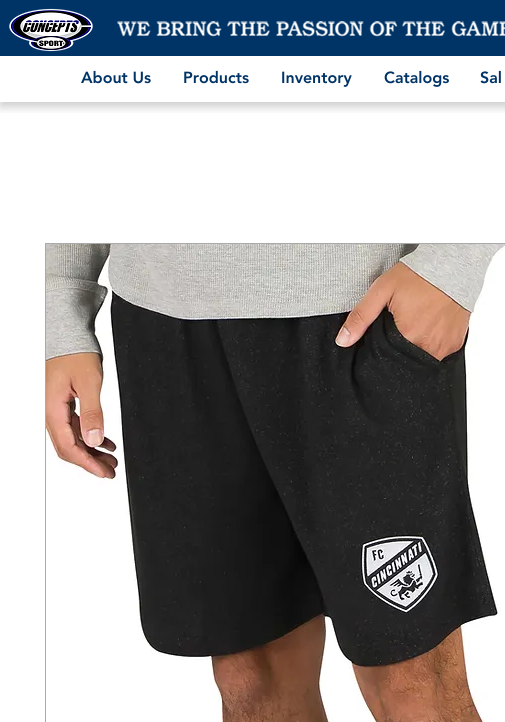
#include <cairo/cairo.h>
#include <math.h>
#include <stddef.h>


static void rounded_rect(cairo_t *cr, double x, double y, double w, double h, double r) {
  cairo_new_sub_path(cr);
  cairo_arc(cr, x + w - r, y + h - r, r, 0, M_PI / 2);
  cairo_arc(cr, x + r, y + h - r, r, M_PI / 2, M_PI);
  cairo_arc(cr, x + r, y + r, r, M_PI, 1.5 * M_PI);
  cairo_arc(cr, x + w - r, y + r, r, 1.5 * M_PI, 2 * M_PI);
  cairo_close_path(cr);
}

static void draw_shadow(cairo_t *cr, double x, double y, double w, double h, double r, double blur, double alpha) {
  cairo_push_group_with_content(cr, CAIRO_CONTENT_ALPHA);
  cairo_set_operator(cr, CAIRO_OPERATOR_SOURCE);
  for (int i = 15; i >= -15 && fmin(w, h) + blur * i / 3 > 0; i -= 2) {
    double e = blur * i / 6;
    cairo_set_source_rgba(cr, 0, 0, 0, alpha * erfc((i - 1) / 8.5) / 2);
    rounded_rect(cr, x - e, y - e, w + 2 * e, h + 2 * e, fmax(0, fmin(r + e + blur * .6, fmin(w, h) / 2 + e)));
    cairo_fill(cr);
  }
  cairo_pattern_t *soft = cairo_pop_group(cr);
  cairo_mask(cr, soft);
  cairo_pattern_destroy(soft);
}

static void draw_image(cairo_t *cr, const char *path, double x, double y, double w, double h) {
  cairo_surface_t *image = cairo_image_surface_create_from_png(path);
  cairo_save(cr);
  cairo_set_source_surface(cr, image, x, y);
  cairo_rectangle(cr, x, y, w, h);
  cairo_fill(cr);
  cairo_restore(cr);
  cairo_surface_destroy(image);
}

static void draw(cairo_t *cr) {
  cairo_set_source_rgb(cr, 1, 1, 1);
  cairo_paint(cr);
  cairo_save(cr);
  cairo_rectangle(cr, 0, 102, 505, 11);
  cairo_clip(cr);
  cairo_set_source_rgb(cr, 0, 0, 0);
  draw_shadow(cr, 0, 5, 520, 102, 0, 5, 0.2);
  cairo_restore(cr);
  cairo_set_source_rgb(cr, 0, 51 / 255.0, 102 / 255.0);
  cairo_rectangle(cr, 0, 0, 505, 56);
  cairo_fill(cr);
  draw_image(cr, "images/1.png", 9, 8, 84, 44);
  draw_image(cr, "images/2.png", 117, 21, 388, 16);
  cairo_rectangle(cr, 45.5, 243.5, 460, 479);
  cairo_set_source_rgb(cr, 170 / 255.0, 170 / 255.0, 170 / 255.0);
  cairo_set_line_width(cr, 1);
  cairo_stroke(cr);
  draw_image(cr, "images/3.png", 46, 244, 459, 478);
  cairo_select_font_face(cr, "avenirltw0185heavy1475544 Black", CAIRO_FONT_SLANT_NORMAL, CAIRO_FONT_WEIGHT_NORMAL);
  cairo_set_font_size(cr, 16);
  cairo_set_source_rgb(cr, 0, 51 / 255.0, 102 / 255.0);
  cairo_move_to(cr, 81, 83);
  cairo_show_text(cr, "About Us");
  cairo_move_to(cr, 183, 83);
  cairo_show_text(cr, "Products");
  cairo_move_to(cr, 281, 83);
  cairo_show_text(cr, "Inventory");
  cairo_move_to(cr, 384, 83);
  cairo_show_text(cr, "Catalogs");
  cairo_move_to(cr, 480, 83);
  cairo_show_text(cr, "Sal");
}

int main(void) {
  cairo_surface_t *surface = cairo_image_surface_create(CAIRO_FORMAT_RGB24, 505, 722);
  cairo_t *cr = cairo_create(surface);
  cairo_font_options_t *options = cairo_font_options_create();
  cairo_font_options_set_hint_metrics(options, CAIRO_HINT_METRICS_OFF);
  cairo_font_options_set_hint_style(options, CAIRO_HINT_STYLE_NONE);
  cairo_set_font_options(cr, options);
  cairo_set_miter_limit(cr, 4);
  draw(cr);
  cairo_surface_write_to_png(surface, "out.png");
  cairo_font_options_destroy(options);
  cairo_destroy(cr);
  cairo_surface_destroy(surface);
  return 0;
}
